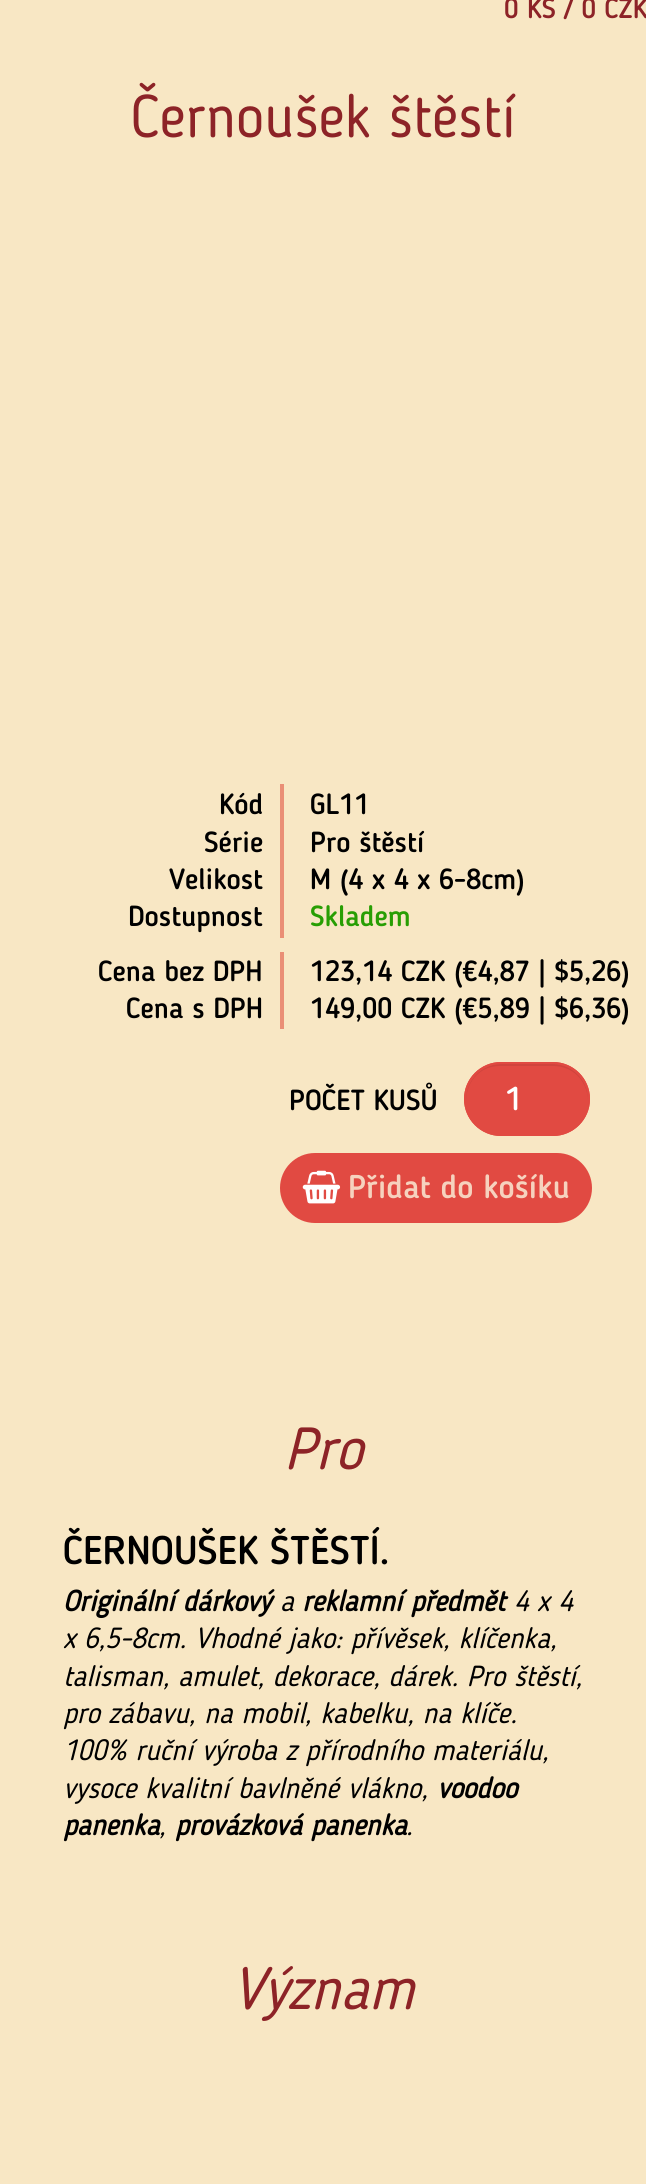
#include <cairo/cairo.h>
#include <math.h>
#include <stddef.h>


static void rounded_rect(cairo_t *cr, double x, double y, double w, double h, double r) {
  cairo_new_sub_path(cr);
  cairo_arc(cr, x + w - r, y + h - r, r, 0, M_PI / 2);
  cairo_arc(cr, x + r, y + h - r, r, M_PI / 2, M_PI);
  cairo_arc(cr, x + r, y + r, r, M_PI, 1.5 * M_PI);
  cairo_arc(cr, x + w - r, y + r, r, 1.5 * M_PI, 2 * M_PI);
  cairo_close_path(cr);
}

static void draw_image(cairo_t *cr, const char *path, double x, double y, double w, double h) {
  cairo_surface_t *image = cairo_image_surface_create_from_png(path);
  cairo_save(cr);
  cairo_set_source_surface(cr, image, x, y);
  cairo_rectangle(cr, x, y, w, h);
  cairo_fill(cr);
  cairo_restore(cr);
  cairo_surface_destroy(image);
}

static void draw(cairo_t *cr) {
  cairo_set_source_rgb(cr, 248 / 255.0, 231 / 255.0, 196 / 255.0);
  cairo_paint(cr);
  cairo_set_source_rgb(cr, 234 / 255.0, 143 / 255.0, 118 / 255.0);
  cairo_rectangle(cr, 280, 784, 4, 154);
  cairo_fill(cr);
  cairo_rectangle(cr, 280, 952, 4, 77);
  cairo_fill(cr);
  cairo_set_source_rgb(cr, 225 / 255.0, 74 / 255.0, 66 / 255.0);
  rounded_rect(cr, 464, 1062, 126, 74, 37);
  cairo_fill(cr);
  cairo_set_source_rgb(cr, 208 / 255.0, 68 / 255.0, 61 / 255.0);
  cairo_new_path(cr);
  cairo_move_to(cr, 500, 1066);
  cairo_line_to(cr, 553, 1066);
  cairo_curve_to(cr, 572, 1066, 587, 1080, 588, 1100);
  cairo_line_to(cr, 588, 1099);
  cairo_curve_to(cr, 588, 1080, 572, 1064, 553, 1064);
  cairo_line_to(cr, 501, 1064);
  cairo_curve_to(cr, 482, 1064, 466, 1080, 466, 1099);
  cairo_line_to(cr, 466, 1100);
  cairo_curve_to(cr, 467, 1080, 481, 1066, 500, 1066);
  cairo_close_path(cr);
  cairo_fill(cr);
  rounded_rect(cr, 465, 1063, 124, 72, 36);
  cairo_set_source_rgb(cr, 225 / 255.0, 74 / 255.0, 66 / 255.0);
  cairo_stroke(cr);
  rounded_rect(cr, 280, 1153, 312, 70, 35);
  cairo_fill(cr);
  draw_image(cr, "images/1.png", 302, 1170, 39, 34);
  cairo_select_font_face(cr, "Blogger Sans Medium", CAIRO_FONT_SLANT_NORMAL, CAIRO_FONT_WEIGHT_NORMAL);
  cairo_set_font_size(cr, 28);
  cairo_set_source_rgb(cr, 141 / 255.0, 35 / 255.0, 39 / 255.0);
  cairo_move_to(cr, 504, 18);
  cairo_show_text(cr, "0 KS / 0 CZK");
  cairo_select_font_face(cr, "Blogger Sans", CAIRO_FONT_SLANT_NORMAL, CAIRO_FONT_WEIGHT_NORMAL);
  cairo_set_font_size(cr, 59.75);
  cairo_move_to(cr, 131, 137);
  cairo_show_text(cr, "Černoušek štěstí");
  cairo_select_font_face(cr, "Blogger Sans Medium", CAIRO_FONT_SLANT_NORMAL, CAIRO_FONT_WEIGHT_NORMAL);
  cairo_set_font_size(cr, 28.9);
  cairo_set_source_rgb(cr, 0, 0, 0);
  cairo_move_to(cr, 219, 814);
  cairo_show_text(cr, "Kód");
  cairo_move_to(cr, 310, 814);
  cairo_show_text(cr, "GL11");
  cairo_move_to(cr, 204, 852);
  cairo_show_text(cr, "Série");
  cairo_move_to(cr, 310, 852);
  cairo_show_text(cr, "Pro štěstí");
  cairo_move_to(cr, 169, 889);
  cairo_show_text(cr, "Velikost");
  cairo_move_to(cr, 310, 889);
  cairo_show_text(cr, "M (4 x 4 x 6-8cm)");
  cairo_move_to(cr, 128, 926);
  cairo_show_text(cr, "Dostupnost");
  cairo_set_source_rgb(cr, 40 / 255.0, 158 / 255.0, 3 / 255.0);
  cairo_move_to(cr, 310, 926);
  cairo_show_text(cr, "Skladem");
  cairo_set_source_rgb(cr, 0, 0, 0);
  cairo_move_to(cr, 98, 981);
  cairo_show_text(cr, "Cena bez DPH");
  cairo_move_to(cr, 310, 981);
  cairo_show_text(cr, "123,14 CZK (€4,87 | $5,26)");
  cairo_move_to(cr, 126, 1018);
  cairo_show_text(cr, "Cena s DPH");
  cairo_move_to(cr, 310, 1018);
  cairo_show_text(cr, "149,00 CZK (€5,89 | $6,36)");
  cairo_move_to(cr, 289, 1110);
  cairo_show_text(cr, "POČET KUSŮ");
  cairo_set_font_size(cr, 32.75);
  cairo_set_source_rgb(cr, 1, 1, 1);
  cairo_move_to(cr, 505, 1110);
  cairo_show_text(cr, "1");
  cairo_set_source_rgb(cr, 246 / 255.0, 210 / 255.0, 190 / 255.0);
  cairo_move_to(cr, 348, 1198);
  cairo_show_text(cr, "Přidat do košíku");
  cairo_select_font_face(cr, "Blogger Sans", CAIRO_FONT_SLANT_ITALIC, CAIRO_FONT_WEIGHT_NORMAL);
  cairo_set_font_size(cr, 59);
  cairo_set_source_rgb(cr, 141 / 255.0, 35 / 255.0, 39 / 255.0);
  cairo_move_to(cr, 284, 1469);
  cairo_show_text(cr, "Pro");
  cairo_select_font_face(cr, "Blogger Sans Medium", CAIRO_FONT_SLANT_NORMAL, CAIRO_FONT_WEIGHT_NORMAL);
  cairo_set_font_size(cr, 39.75);
  cairo_set_source_rgb(cr, 0, 0, 0);
  cairo_move_to(cr, 63, 1564);
  cairo_show_text(cr, "ČERNOUŠEK ŠTĚSTÍ.");
  cairo_select_font_face(cr, "Blogger Sans", CAIRO_FONT_SLANT_ITALIC, CAIRO_FONT_WEIGHT_BOLD);
  cairo_set_font_size(cr, 28.9);
  cairo_move_to(cr, 63, 1611);
  cairo_show_text(cr, "Originální dárkový");
  cairo_select_font_face(cr, "Blogger Sans", CAIRO_FONT_SLANT_ITALIC, CAIRO_FONT_WEIGHT_NORMAL);
  cairo_move_to(cr, 280, 1611);
  cairo_show_text(cr, "a");
  cairo_select_font_face(cr, "Blogger Sans", CAIRO_FONT_SLANT_ITALIC, CAIRO_FONT_WEIGHT_BOLD);
  cairo_move_to(cr, 302, 1611);
  cairo_show_text(cr, "reklamní předmět");
  cairo_select_font_face(cr, "Blogger Sans", CAIRO_FONT_SLANT_ITALIC, CAIRO_FONT_WEIGHT_NORMAL);
  cairo_move_to(cr, 514, 1611);
  cairo_show_text(cr, "4 x 4");
  cairo_move_to(cr, 63, 1648);
  cairo_show_text(cr, "x 6,5-8cm. Vhodné jako: přívěsek, klíčenka,");
  cairo_move_to(cr, 63, 1686);
  cairo_show_text(cr, "talisman, amulet, dekorace, dárek. Pro štěstí,");
  cairo_move_to(cr, 63, 1723);
  cairo_show_text(cr, "pro zábavu, na mobil, kabelku, na klíče.");
  cairo_move_to(cr, 63, 1760);
  cairo_show_text(cr, "100% ruční výroba z přírodního materiálu,");
  cairo_move_to(cr, 63, 1798);
  cairo_show_text(cr, "vysoce kvalitní bavlněné vlákno,");
  cairo_select_font_face(cr, "Blogger Sans", CAIRO_FONT_SLANT_ITALIC, CAIRO_FONT_WEIGHT_BOLD);
  cairo_move_to(cr, 437, 1798);
  cairo_show_text(cr, "voodoo");
  cairo_move_to(cr, 63, 1835);
  cairo_show_text(cr, "panenka");
  cairo_select_font_face(cr, "Blogger Sans", CAIRO_FONT_SLANT_ITALIC, CAIRO_FONT_WEIGHT_NORMAL);
  cairo_move_to(cr, 159, 1835);
  cairo_show_text(cr, ",");
  cairo_select_font_face(cr, "Blogger Sans", CAIRO_FONT_SLANT_ITALIC, CAIRO_FONT_WEIGHT_BOLD);
  cairo_move_to(cr, 175, 1835);
  cairo_show_text(cr, "provázková panenka");
  cairo_select_font_face(cr, "Blogger Sans", CAIRO_FONT_SLANT_ITALIC, CAIRO_FONT_WEIGHT_NORMAL);
  cairo_move_to(cr, 406, 1835);
  cairo_show_text(cr, ".");
  cairo_set_font_size(cr, 59);
  cairo_set_source_rgb(cr, 141 / 255.0, 35 / 255.0, 39 / 255.0);
  cairo_move_to(cr, 232, 2009);
  cairo_show_text(cr, "Význam");
}

int main(void) {
  cairo_surface_t *surface = cairo_image_surface_create(CAIRO_FORMAT_RGB24, 646, 2184);
  cairo_t *cr = cairo_create(surface);
  cairo_font_options_t *options = cairo_font_options_create();
  cairo_font_options_set_hint_metrics(options, CAIRO_HINT_METRICS_OFF);
  cairo_font_options_set_hint_style(options, CAIRO_HINT_STYLE_NONE);
  cairo_set_font_options(cr, options);
  cairo_set_miter_limit(cr, 4);
  draw(cr);
  cairo_surface_write_to_png(surface, "out.png");
  cairo_font_options_destroy(options);
  cairo_destroy(cr);
  cairo_surface_destroy(surface);
  return 0;
}
